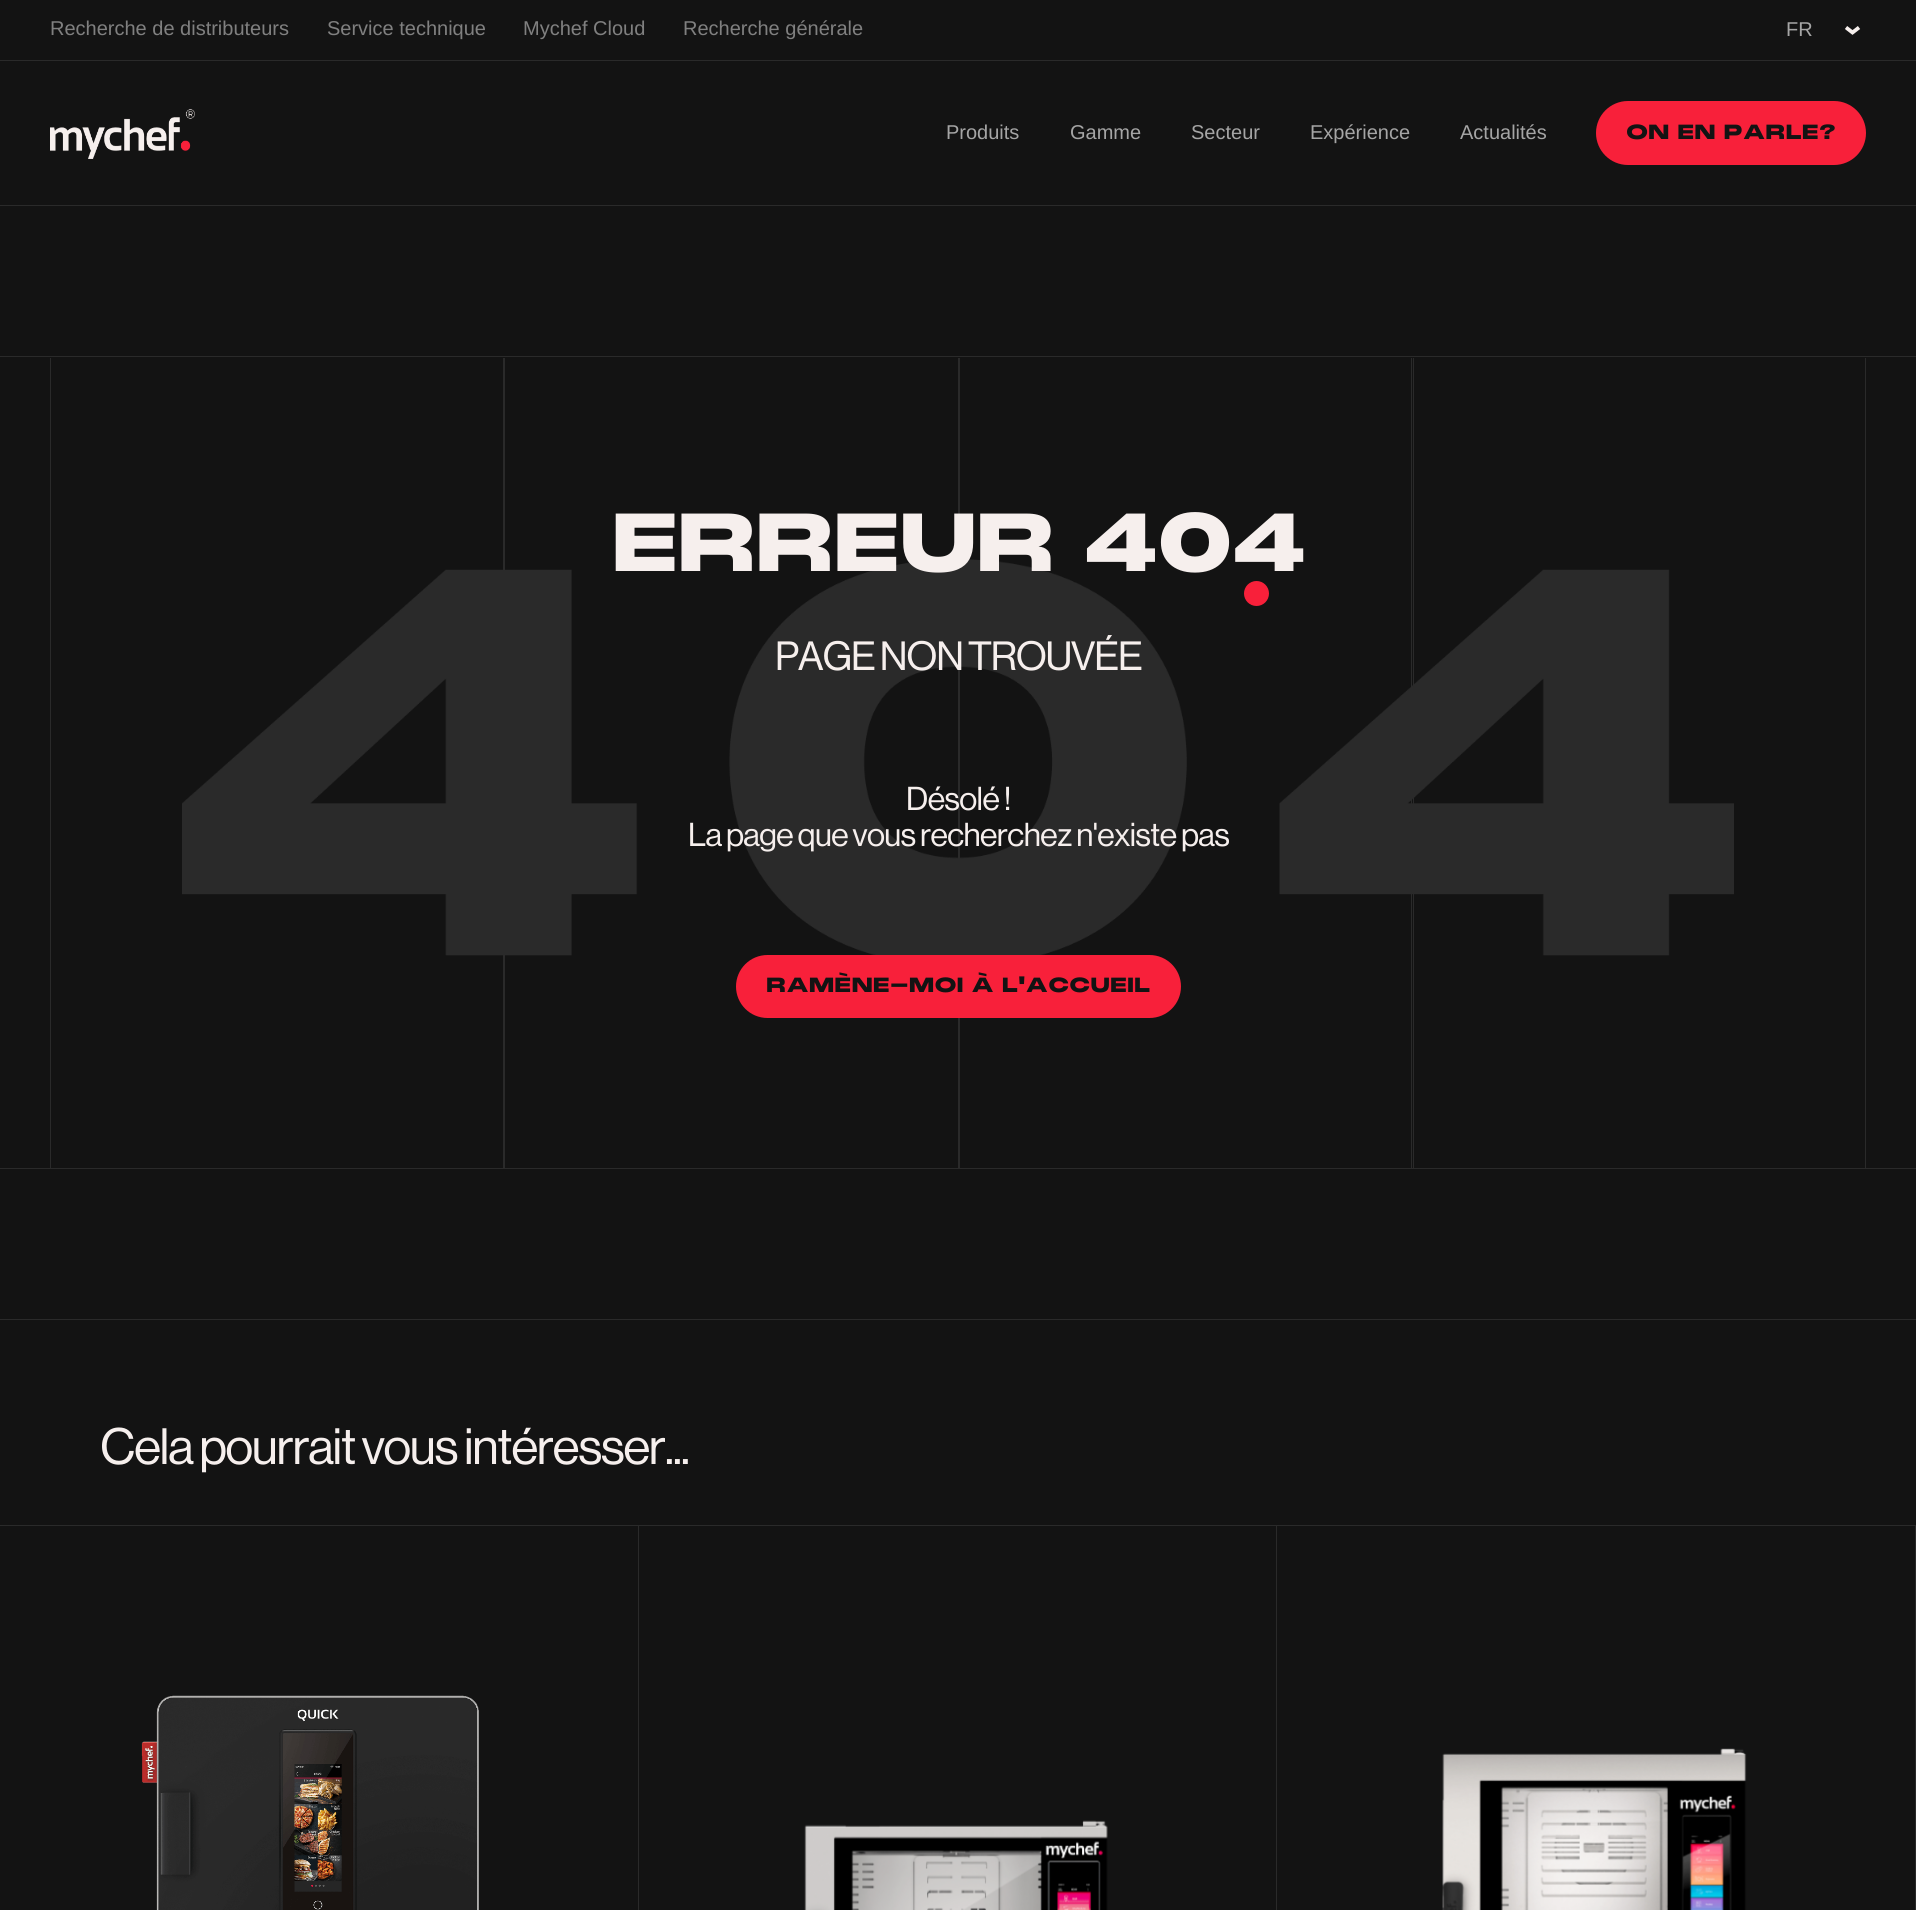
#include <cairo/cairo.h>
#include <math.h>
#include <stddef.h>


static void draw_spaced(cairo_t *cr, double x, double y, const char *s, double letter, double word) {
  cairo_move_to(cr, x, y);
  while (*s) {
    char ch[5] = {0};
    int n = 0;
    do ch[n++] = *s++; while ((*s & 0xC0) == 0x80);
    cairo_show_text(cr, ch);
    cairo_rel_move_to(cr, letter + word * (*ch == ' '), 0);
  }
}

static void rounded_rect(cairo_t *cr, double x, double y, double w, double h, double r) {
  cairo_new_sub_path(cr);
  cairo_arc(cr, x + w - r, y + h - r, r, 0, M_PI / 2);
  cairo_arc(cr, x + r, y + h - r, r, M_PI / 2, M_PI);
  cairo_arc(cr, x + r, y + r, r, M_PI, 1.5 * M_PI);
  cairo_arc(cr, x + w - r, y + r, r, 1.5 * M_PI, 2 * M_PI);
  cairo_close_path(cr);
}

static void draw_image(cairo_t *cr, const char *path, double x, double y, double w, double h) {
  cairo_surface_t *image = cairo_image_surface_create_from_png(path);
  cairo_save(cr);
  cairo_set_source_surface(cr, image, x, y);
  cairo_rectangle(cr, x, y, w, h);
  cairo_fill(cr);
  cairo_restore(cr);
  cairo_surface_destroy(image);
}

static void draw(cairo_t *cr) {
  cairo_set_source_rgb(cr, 19 / 255.0, 19 / 255.0, 19 / 255.0);
  cairo_paint(cr);
  cairo_set_source_rgb(cr, 42 / 255.0, 42 / 255.0, 42 / 255.0);
  cairo_rectangle(cr, 0, 60, 1916, 1);
  cairo_fill(cr);
  cairo_new_path(cr);
  cairo_move_to(cr, 1846, 27.5);
  cairo_line_to(cr, 1852.5, 32.5);
  cairo_line_to(cr, 1859, 27.5);
  cairo_set_source_rgb(cr, 246 / 255.0, 239 / 255.0, 237 / 255.0);
  cairo_set_line_width(cr, 3.8);
  cairo_stroke(cr);
  cairo_set_source_rgb(cr, 42 / 255.0, 42 / 255.0, 42 / 255.0);
  cairo_rectangle(cr, 0, 205, 1916, 1);
  cairo_fill(cr);
  draw_image(cr, "images/1.png", 50, 109, 145, 50);
  cairo_set_source_rgb(cr, 248 / 255.0, 32 / 255.0, 58 / 255.0);
  rounded_rect(cr, 1596, 101, 270, 64, 32);
  cairo_fill(cr);
  cairo_set_source_rgb(cr, 42 / 255.0, 42 / 255.0, 42 / 255.0);
  cairo_rectangle(cr, 0, 356, 1916, 1);
  cairo_fill(cr);
  cairo_rectangle(cr, 0, 1168, 1916, 1);
  cairo_fill(cr);
  cairo_rectangle(cr, 503, 358, 2, 810);
  cairo_fill(cr);
  cairo_rectangle(cr, 50, 358, 1, 810);
  cairo_fill(cr);
  cairo_rectangle(cr, 958, 358, 2, 810);
  cairo_fill(cr);
  cairo_rectangle(cr, 1411, 358, 1, 810);
  cairo_fill(cr);
  cairo_rectangle(cr, 1865, 358, 1, 810);
  cairo_fill(cr);
  cairo_rectangle(cr, 1413, 358, 1, 810);
  cairo_fill(cr);
  draw_image(cr, "images/2.png", 182, 559, 1552, 397);
  cairo_set_source_rgb(cr, 248 / 255.0, 32 / 255.0, 58 / 255.0);
  rounded_rect(cr, 736, 955, 445, 63, 31.5);
  cairo_fill(cr);
  cairo_set_source_rgb(cr, 42 / 255.0, 42 / 255.0, 42 / 255.0);
  cairo_rectangle(cr, 0, 1319, 1916, 1);
  cairo_fill(cr);
  cairo_rectangle(cr, 0, 1525, 1916, 1);
  cairo_fill(cr);
  cairo_rectangle(cr, 638, 1526, 1, 384);
  cairo_fill(cr);
  draw_image(cr, "images/3.png", 141, 1695, 338, 215);
  cairo_rectangle(cr, 1276, 1526, 1, 384);
  cairo_fill(cr);
  draw_image(cr, "images/4.png", 804, 1820, 304, 90);
  cairo_rectangle(cr, 1915, 1526, 1, 384);
  cairo_fill(cr);
  draw_image(cr, "images/5.png", 1442, 1748, 305, 162);
  cairo_set_source_rgb(cr, 248 / 255.0, 32 / 255.0, 58 / 255.0);
  cairo_arc(cr, 1256.5, 593.5, 12.5, 0, 2 * M_PI);
  cairo_fill(cr);
  cairo_select_font_face(cr, "Liberation Sans", CAIRO_FONT_SLANT_NORMAL, CAIRO_FONT_WEIGHT_NORMAL);
  cairo_set_font_size(cr, 20);
  cairo_set_source_rgb(cr, 128 / 255.0, 128 / 255.0, 128 / 255.0);
  cairo_move_to(cr, 50, 35);
  cairo_show_text(cr, "Recherche de distributeurs");
  cairo_move_to(cr, 327, 35);
  cairo_show_text(cr, "Service technique");
  cairo_move_to(cr, 523, 35);
  cairo_show_text(cr, "Mychef Cloud");
  cairo_move_to(cr, 683, 35);
  cairo_show_text(cr, "Recherche générale");
  cairo_set_source_rgb(cr, 165 / 255.0, 165 / 255.0, 165 / 255.0);
  cairo_move_to(cr, 1786, 36);
  cairo_show_text(cr, "FR");
  cairo_move_to(cr, 946, 139);
  cairo_show_text(cr, "Produits");
  cairo_move_to(cr, 1070, 139);
  cairo_show_text(cr, "Gamme");
  cairo_move_to(cr, 1191, 139);
  cairo_show_text(cr, "Secteur");
  cairo_move_to(cr, 1310, 139);
  cairo_show_text(cr, "Expérience");
  cairo_move_to(cr, 1460, 139);
  cairo_show_text(cr, "Actualités");
  cairo_select_font_face(cr, "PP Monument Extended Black", CAIRO_FONT_SLANT_NORMAL, CAIRO_FONT_WEIGHT_NORMAL);
  cairo_set_source_rgb(cr, 19 / 255.0, 19 / 255.0, 19 / 255.0);
  cairo_move_to(cr, 1626, 139);
  cairo_show_text(cr, "ON EN PARLE?");
  cairo_set_font_size(cr, 80);
  cairo_set_source_rgb(cr, 246 / 255.0, 239 / 255.0, 237 / 255.0);
  draw_spaced(cr, 611, 571, "ERREUR 404", -2.5, 0);
  cairo_select_font_face(cr, "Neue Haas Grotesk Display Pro", CAIRO_FONT_SLANT_NORMAL, CAIRO_FONT_WEIGHT_NORMAL);
  cairo_set_font_size(cr, 40);
  draw_spaced(cr, 775, 670, "PAGE NON TROUVÉE", -1.25, 0);
  cairo_set_font_size(cr, 32.5);
  draw_spaced(cr, 906, 810, "Désolé !", -0.6, 0);
  draw_spaced(cr, 688, 846, "La page que vous recherchez n'existe pas", -0.6, 0);
  cairo_select_font_face(cr, "PP Monument Extended Black", CAIRO_FONT_SLANT_NORMAL, CAIRO_FONT_WEIGHT_NORMAL);
  cairo_set_font_size(cr, 20);
  cairo_set_source_rgb(cr, 19 / 255.0, 19 / 255.0, 19 / 255.0);
  cairo_move_to(cr, 766, 992);
  cairo_show_text(cr, "RAMÈNE-MOI À L'ACCUEIL");
  cairo_select_font_face(cr, "Neue Haas Grotesk Display Pro", CAIRO_FONT_SLANT_NORMAL, CAIRO_FONT_WEIGHT_NORMAL);
  cairo_set_font_size(cr, 50);
  cairo_set_source_rgb(cr, 246 / 255.0, 239 / 255.0, 237 / 255.0);
  draw_spaced(cr, 100, 1464, "Cela pourrait vous intéresser...", -1.25, 0);
}

int main(void) {
  cairo_surface_t *surface = cairo_image_surface_create(CAIRO_FORMAT_RGB24, 1916, 1910);
  cairo_t *cr = cairo_create(surface);
  cairo_font_options_t *options = cairo_font_options_create();
  cairo_font_options_set_hint_metrics(options, CAIRO_HINT_METRICS_OFF);
  cairo_font_options_set_hint_style(options, CAIRO_HINT_STYLE_NONE);
  cairo_set_font_options(cr, options);
  cairo_set_miter_limit(cr, 4);
  draw(cr);
  cairo_surface_write_to_png(surface, "out.png");
  cairo_font_options_destroy(options);
  cairo_destroy(cr);
  cairo_surface_destroy(surface);
  return 0;
}
